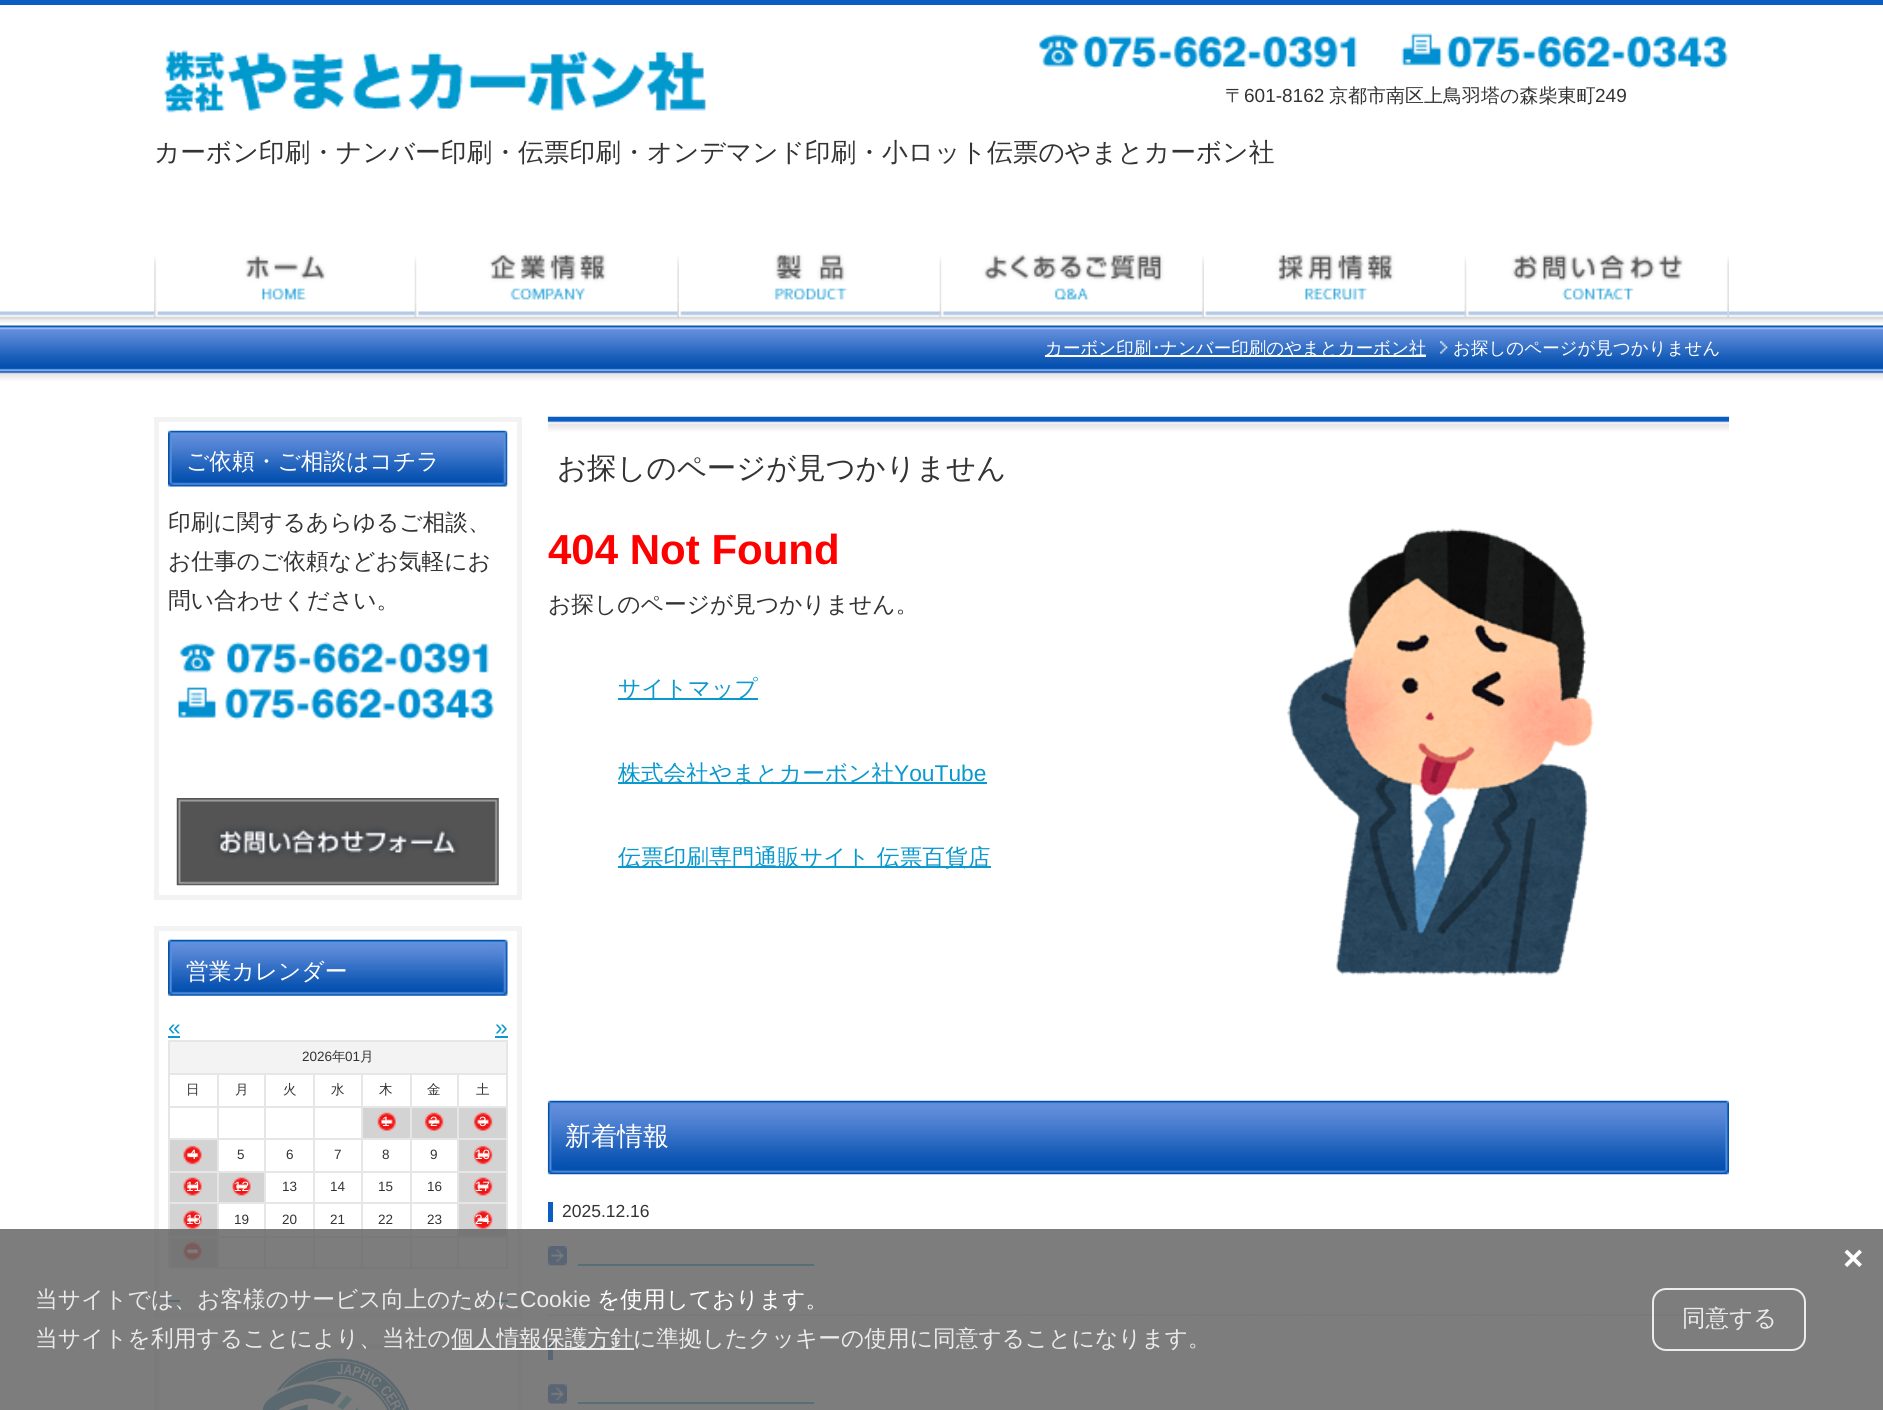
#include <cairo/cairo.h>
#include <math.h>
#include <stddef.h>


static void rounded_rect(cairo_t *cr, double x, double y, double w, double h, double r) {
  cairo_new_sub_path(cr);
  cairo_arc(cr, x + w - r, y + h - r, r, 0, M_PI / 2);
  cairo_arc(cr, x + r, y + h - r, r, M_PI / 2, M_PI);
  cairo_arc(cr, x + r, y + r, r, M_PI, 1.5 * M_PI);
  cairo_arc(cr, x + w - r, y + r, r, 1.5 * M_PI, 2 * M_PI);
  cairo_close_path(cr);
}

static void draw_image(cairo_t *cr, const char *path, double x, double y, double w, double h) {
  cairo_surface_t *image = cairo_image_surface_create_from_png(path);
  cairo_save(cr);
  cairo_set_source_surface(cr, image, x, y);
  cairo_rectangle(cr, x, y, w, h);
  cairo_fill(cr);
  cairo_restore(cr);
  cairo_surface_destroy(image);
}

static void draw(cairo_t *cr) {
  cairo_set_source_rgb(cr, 1, 1, 1);
  cairo_paint(cr);
  cairo_set_source_rgb(cr, 12 / 255.0, 93 / 255.0, 194 / 255.0);
  cairo_rectangle(cr, 0, 0, 1883, 5);
  cairo_fill(cr);
  draw_image(cr, "images/1.png", 1039, 33, 689, 36);
  draw_image(cr, "images/2.png", 164, 50, 542, 63);
  draw_image(cr, "images/9.png", 0, 311, 1883, 70);
  draw_image(cr, "images/3.png", 154, 255, 263, 63);
  draw_image(cr, "images/4.png", 416, 253, 263, 65);
  draw_image(cr, "images/5.png", 679, 253, 263, 64);
  draw_image(cr, "images/6.png", 941, 253, 263, 65);
  draw_image(cr, "images/7.png", 1204, 253, 263, 64);
  draw_image(cr, "images/8.png", 1466, 253, 263, 65);
  cairo_set_source_rgb(cr, 1, 1, 1);
  cairo_rectangle(cr, 1045, 355, 381, 2);
  cairo_fill(cr);
  draw_image(cr, "images/10.png", 1440, 341, 8, 13);
  cairo_rectangle(cr, 156.5, 419.5, 363, 478);
  cairo_set_source_rgb(cr, 243 / 255.0, 243 / 255.0, 243 / 255.0);
  cairo_set_line_width(cr, 5);
  cairo_stroke(cr);
  draw_image(cr, "images/11.png", 168, 430, 340, 57);
  draw_image(cr, "images/12.png", 178, 641, 316, 79);
  draw_image(cr, "images/13.png", 176, 798, 323, 88);
  cairo_rectangle(cr, 156.5, 928.5, 363, 387);
  cairo_stroke(cr);
  draw_image(cr, "images/14.png", 168, 939, 340, 57);
  cairo_set_source_rgb(cr, 10 / 255.0, 152 / 255.0, 205 / 255.0);
  cairo_rectangle(cr, 168, 1036, 12, 2);
  cairo_fill(cr);
  cairo_rectangle(cr, 495, 1036, 13, 2);
  cairo_fill(cr);
  cairo_set_source_rgb(cr, 230 / 255.0, 230 / 255.0, 230 / 255.0);
  cairo_rectangle(cr, 168, 1040, 340, 2);
  cairo_fill(cr);
  cairo_rectangle(cr, 168, 1040, 2, 229);
  cairo_fill(cr);
  cairo_set_source_rgb(cr, 211 / 255.0, 211 / 255.0, 211 / 255.0);
  cairo_rectangle(cr, 170, 1238, 47, 29);
  cairo_fill(cr);
  draw_image(cr, "images/15.png", 183, 1242, 19, 19);
  cairo_set_source_rgb(cr, 230 / 255.0, 230 / 255.0, 230 / 255.0);
  cairo_rectangle(cr, 506, 1040, 2, 229);
  cairo_fill(cr);
  cairo_rectangle(cr, 457, 1267, 51, 2);
  cairo_fill(cr);
  cairo_rectangle(cr, 457, 1236, 2, 33);
  cairo_fill(cr);
  cairo_rectangle(cr, 410, 1267, 49, 2);
  cairo_fill(cr);
  cairo_rectangle(cr, 410, 1236, 2, 33);
  cairo_fill(cr);
  cairo_rectangle(cr, 361, 1267, 50, 2);
  cairo_fill(cr);
  cairo_rectangle(cr, 361, 1236, 2, 33);
  cairo_fill(cr);
  cairo_rectangle(cr, 313, 1267, 49, 2);
  cairo_fill(cr);
  cairo_rectangle(cr, 313, 1236, 2, 33);
  cairo_fill(cr);
  cairo_rectangle(cr, 264, 1267, 51, 2);
  cairo_fill(cr);
  cairo_rectangle(cr, 264, 1236, 2, 33);
  cairo_fill(cr);
  cairo_rectangle(cr, 217, 1267, 49, 2);
  cairo_fill(cr);
  cairo_rectangle(cr, 217, 1236, 2, 33);
  cairo_fill(cr);
  cairo_rectangle(cr, 168, 1267, 51, 2);
  cairo_fill(cr);
  cairo_set_source_rgb(cr, 243 / 255.0, 243 / 255.0, 243 / 255.0);
  cairo_rectangle(cr, 170, 1042, 336, 31);
  cairo_fill(cr);
  cairo_set_source_rgb(cr, 230 / 255.0, 230 / 255.0, 230 / 255.0);
  cairo_rectangle(cr, 457, 1236, 51, 2);
  cairo_fill(cr);
  cairo_rectangle(cr, 457, 1202, 2, 35);
  cairo_fill(cr);
  cairo_rectangle(cr, 457, 1202, 51, 2);
  cairo_fill(cr);
  cairo_rectangle(cr, 457, 1171, 2, 33);
  cairo_fill(cr);
  cairo_rectangle(cr, 457, 1171, 51, 2);
  cairo_fill(cr);
  cairo_rectangle(cr, 457, 1138, 2, 35);
  cairo_fill(cr);
  cairo_rectangle(cr, 457, 1138, 51, 2);
  cairo_fill(cr);
  cairo_rectangle(cr, 457, 1106, 2, 33);
  cairo_fill(cr);
  cairo_rectangle(cr, 457, 1106, 51, 2);
  cairo_fill(cr);
  cairo_rectangle(cr, 457, 1073, 2, 35);
  cairo_fill(cr);
  cairo_rectangle(cr, 410, 1236, 49, 2);
  cairo_fill(cr);
  cairo_rectangle(cr, 410, 1202, 2, 35);
  cairo_fill(cr);
  cairo_rectangle(cr, 410, 1202, 49, 2);
  cairo_fill(cr);
  cairo_rectangle(cr, 410, 1171, 2, 33);
  cairo_fill(cr);
  cairo_rectangle(cr, 410, 1171, 49, 2);
  cairo_fill(cr);
  cairo_rectangle(cr, 410, 1138, 2, 35);
  cairo_fill(cr);
  cairo_rectangle(cr, 410, 1138, 49, 2);
  cairo_fill(cr);
  cairo_rectangle(cr, 410, 1106, 2, 33);
  cairo_fill(cr);
  cairo_rectangle(cr, 410, 1106, 49, 2);
  cairo_fill(cr);
  cairo_rectangle(cr, 410, 1073, 2, 35);
  cairo_fill(cr);
  cairo_rectangle(cr, 361, 1236, 50, 2);
  cairo_fill(cr);
  cairo_rectangle(cr, 361, 1202, 2, 35);
  cairo_fill(cr);
  cairo_rectangle(cr, 361, 1202, 50, 2);
  cairo_fill(cr);
  cairo_rectangle(cr, 361, 1171, 2, 33);
  cairo_fill(cr);
  cairo_rectangle(cr, 361, 1171, 50, 2);
  cairo_fill(cr);
  cairo_rectangle(cr, 361, 1138, 2, 35);
  cairo_fill(cr);
  cairo_rectangle(cr, 361, 1138, 50, 2);
  cairo_fill(cr);
  cairo_rectangle(cr, 361, 1106, 2, 33);
  cairo_fill(cr);
  cairo_rectangle(cr, 361, 1106, 50, 2);
  cairo_fill(cr);
  cairo_rectangle(cr, 361, 1073, 2, 35);
  cairo_fill(cr);
  cairo_rectangle(cr, 313, 1236, 49, 2);
  cairo_fill(cr);
  cairo_rectangle(cr, 313, 1202, 2, 35);
  cairo_fill(cr);
  cairo_rectangle(cr, 313, 1202, 49, 2);
  cairo_fill(cr);
  cairo_rectangle(cr, 313, 1171, 2, 33);
  cairo_fill(cr);
  cairo_rectangle(cr, 313, 1171, 49, 2);
  cairo_fill(cr);
  cairo_rectangle(cr, 313, 1138, 2, 35);
  cairo_fill(cr);
  cairo_rectangle(cr, 313, 1138, 49, 2);
  cairo_fill(cr);
  cairo_rectangle(cr, 313, 1106, 2, 33);
  cairo_fill(cr);
  cairo_rectangle(cr, 313, 1106, 49, 2);
  cairo_fill(cr);
  cairo_rectangle(cr, 313, 1073, 2, 35);
  cairo_fill(cr);
  cairo_rectangle(cr, 264, 1236, 51, 2);
  cairo_fill(cr);
  cairo_rectangle(cr, 264, 1202, 2, 35);
  cairo_fill(cr);
  cairo_rectangle(cr, 264, 1202, 51, 2);
  cairo_fill(cr);
  cairo_rectangle(cr, 264, 1171, 2, 33);
  cairo_fill(cr);
  cairo_rectangle(cr, 264, 1171, 51, 2);
  cairo_fill(cr);
  cairo_rectangle(cr, 264, 1138, 2, 35);
  cairo_fill(cr);
  cairo_rectangle(cr, 264, 1138, 51, 2);
  cairo_fill(cr);
  cairo_rectangle(cr, 264, 1106, 2, 33);
  cairo_fill(cr);
  cairo_rectangle(cr, 264, 1106, 51, 2);
  cairo_fill(cr);
  cairo_rectangle(cr, 264, 1073, 2, 35);
  cairo_fill(cr);
  cairo_rectangle(cr, 217, 1236, 49, 2);
  cairo_fill(cr);
  cairo_rectangle(cr, 217, 1202, 2, 35);
  cairo_fill(cr);
  cairo_rectangle(cr, 217, 1202, 49, 2);
  cairo_fill(cr);
  cairo_rectangle(cr, 217, 1171, 2, 33);
  cairo_fill(cr);
  cairo_rectangle(cr, 217, 1171, 49, 2);
  cairo_fill(cr);
  cairo_rectangle(cr, 217, 1138, 2, 35);
  cairo_fill(cr);
  cairo_rectangle(cr, 217, 1138, 49, 2);
  cairo_fill(cr);
  cairo_rectangle(cr, 217, 1106, 2, 33);
  cairo_fill(cr);
  cairo_rectangle(cr, 217, 1106, 49, 2);
  cairo_fill(cr);
  cairo_rectangle(cr, 217, 1073, 2, 35);
  cairo_fill(cr);
  cairo_rectangle(cr, 168, 1073, 340, 2);
  cairo_fill(cr);
  cairo_rectangle(cr, 168, 1106, 51, 2);
  cairo_fill(cr);
  cairo_rectangle(cr, 168, 1138, 51, 2);
  cairo_fill(cr);
  cairo_set_source_rgb(cr, 211 / 255.0, 211 / 255.0, 211 / 255.0);
  cairo_rectangle(cr, 363, 1108, 47, 30);
  cairo_fill(cr);
  draw_image(cr, "images/16.png", 377, 1112, 19, 19);
  cairo_rectangle(cr, 412, 1108, 45, 30);
  cairo_fill(cr);
  draw_image(cr, "images/17.png", 424, 1112, 20, 19);
  cairo_rectangle(cr, 459, 1108, 47, 30);
  cairo_fill(cr);
  draw_image(cr, "images/17.png", 473, 1112, 20, 19);
  cairo_rectangle(cr, 170, 1140, 47, 31);
  cairo_fill(cr);
  draw_image(cr, "images/18.png", 183, 1145, 19, 20);
  cairo_set_source_rgb(cr, 230 / 255.0, 230 / 255.0, 230 / 255.0);
  cairo_rectangle(cr, 168, 1171, 51, 2);
  cairo_fill(cr);
  cairo_set_source_rgb(cr, 211 / 255.0, 211 / 255.0, 211 / 255.0);
  cairo_rectangle(cr, 459, 1140, 47, 31);
  cairo_fill(cr);
  draw_image(cr, "images/19.png", 473, 1145, 20, 20);
  cairo_rectangle(cr, 170, 1173, 47, 29);
  cairo_fill(cr);
  draw_image(cr, "images/20.png", 183, 1177, 19, 19);
  cairo_set_source_rgb(cr, 230 / 255.0, 230 / 255.0, 230 / 255.0);
  cairo_rectangle(cr, 168, 1202, 51, 2);
  cairo_fill(cr);
  cairo_set_source_rgb(cr, 211 / 255.0, 211 / 255.0, 211 / 255.0);
  cairo_rectangle(cr, 219, 1173, 45, 29);
  cairo_fill(cr);
  draw_image(cr, "images/21.png", 232, 1177, 19, 19);
  cairo_rectangle(cr, 459, 1173, 47, 29);
  cairo_fill(cr);
  draw_image(cr, "images/22.png", 473, 1177, 20, 19);
  cairo_rectangle(cr, 170, 1204, 47, 32);
  cairo_fill(cr);
  draw_image(cr, "images/23.png", 183, 1210, 19, 19);
  cairo_set_source_rgb(cr, 230 / 255.0, 230 / 255.0, 230 / 255.0);
  cairo_rectangle(cr, 168, 1236, 51, 2);
  cairo_fill(cr);
  cairo_set_source_rgb(cr, 211 / 255.0, 211 / 255.0, 211 / 255.0);
  cairo_rectangle(cr, 459, 1204, 47, 32);
  cairo_fill(cr);
  draw_image(cr, "images/17.png", 473, 1210, 20, 19);
  cairo_set_source_rgb(cr, 10 / 255.0, 152 / 255.0, 205 / 255.0);
  cairo_rectangle(cr, 168, 1300, 12, 2);
  cairo_fill(cr);
  cairo_rectangle(cr, 495, 1300, 13, 2);
  cairo_fill(cr);
  cairo_rectangle(cr, 156.5, 1346.5, 363, 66);
  cairo_set_source_rgb(cr, 243 / 255.0, 243 / 255.0, 243 / 255.0);
  cairo_stroke(cr);
  draw_image(cr, "images/24.png", 262, 1358, 148, 52);
  draw_image(cr, "images/25.png", 547, 416, 1182, 16);
  cairo_set_source_rgb(cr, 10 / 255.0, 152 / 255.0, 205 / 255.0);
  cairo_rectangle(cr, 618, 698, 140, 2);
  cairo_fill(cr);
  cairo_rectangle(cr, 618, 782, 369, 2);
  cairo_fill(cr);
  cairo_rectangle(cr, 618, 866, 373, 2);
  cairo_fill(cr);
  draw_image(cr, "images/26.png", 1287, 528, 308, 448);
  draw_image(cr, "images/27.png", 547, 1100, 1182, 75);
  draw_image(cr, "images/28.png", 548, 1314, 1181, 2);
  cairo_set_source_rgb(cr, 12 / 255.0, 93 / 255.0, 194 / 255.0);
  cairo_rectangle(cr, 548, 1202, 5, 20);
  cairo_fill(cr);
  draw_image(cr, "images/29.png", 547, 1246, 20, 20);
  cairo_set_source_rgb(cr, 10 / 255.0, 152 / 255.0, 205 / 255.0);
  cairo_rectangle(cr, 578, 1264, 236, 2);
  cairo_fill(cr);
  cairo_set_source_rgb(cr, 12 / 255.0, 93 / 255.0, 194 / 255.0);
  cairo_rectangle(cr, 548, 1342, 5, 18);
  cairo_fill(cr);
  draw_image(cr, "images/30.png", 547, 1384, 20, 20);
  cairo_set_source_rgb(cr, 10 / 255.0, 152 / 255.0, 205 / 255.0);
  cairo_rectangle(cr, 578, 1402, 236, 2);
  cairo_fill(cr);
  cairo_set_source_rgba(cr, 102 / 255.0, 102 / 255.0, 102 / 255.0, 0.85);
  cairo_rectangle(cr, 0, 1229, 1883, 181);
  cairo_fill(cr);
  cairo_set_source_rgba(cr, 1, 1, 1, 0.85);
  cairo_rectangle(cr, 452, 1348, 182, 2);
  cairo_fill(cr);
  rounded_rect(cr, 1653, 1289, 152, 61, 13);
  cairo_set_line_width(cr, 2);
  cairo_stroke(cr);
  cairo_select_font_face(cr, "WenQuanYi Zen Hei Medium", CAIRO_FONT_SLANT_NORMAL, CAIRO_FONT_WEIGHT_NORMAL);
  cairo_set_font_size(cr, 19);
  cairo_set_source_rgb(cr, 51 / 255.0, 51 / 255.0, 51 / 255.0);
  cairo_move_to(cr, 1225, 102);
  cairo_show_text(cr, "〒");
  cairo_select_font_face(cr, "Liberation Sans", CAIRO_FONT_SLANT_NORMAL, CAIRO_FONT_WEIGHT_NORMAL);
  cairo_move_to(cr, 1244, 102);
  cairo_show_text(cr, "601-8162");
  cairo_select_font_face(cr, "WenQuanYi Zen Hei Medium", CAIRO_FONT_SLANT_NORMAL, CAIRO_FONT_WEIGHT_NORMAL);
  cairo_move_to(cr, 1329, 102);
  cairo_show_text(cr, "京都市南区上鳥羽塔の森柴東町");
  cairo_select_font_face(cr, "Liberation Sans", CAIRO_FONT_SLANT_NORMAL, CAIRO_FONT_WEIGHT_NORMAL);
  cairo_move_to(cr, 1595, 102);
  cairo_show_text(cr, "249");
  cairo_select_font_face(cr, "WenQuanYi Zen Hei Medium", CAIRO_FONT_SLANT_NORMAL, CAIRO_FONT_WEIGHT_NORMAL);
  cairo_set_font_size(cr, 25.75);
  cairo_move_to(cr, 154, 161);
  cairo_show_text(cr, "カーボン印刷・ナンバー印刷・");
  cairo_move_to(cr, 518, 161);
  cairo_show_text(cr, "伝票印刷・オンデマンド印刷・小ロット伝票のやまとカーボン社");
  cairo_set_font_size(cr, 17.5);
  cairo_set_source_rgb(cr, 1, 1, 1);
  cairo_move_to(cr, 1045, 354);
  cairo_show_text(cr, "カーボン印刷");
  cairo_select_font_face(cr, "IPAPGothic", CAIRO_FONT_SLANT_NORMAL, CAIRO_FONT_WEIGHT_NORMAL);
  cairo_move_to(cr, 1152, 354);
  cairo_show_text(cr, "･");
  cairo_select_font_face(cr, "WenQuanYi Zen Hei Medium", CAIRO_FONT_SLANT_NORMAL, CAIRO_FONT_WEIGHT_NORMAL);
  cairo_move_to(cr, 1160, 354);
  cairo_show_text(cr, "ナンバー印刷のやまとカーボン社");
  cairo_move_to(cr, 1453, 354);
  cairo_show_text(cr, "お探しのページが見つかりません");
  cairo_set_font_size(cr, 22.75);
  cairo_move_to(cr, 186, 469);
  cairo_show_text(cr, "ご依頼・ご相談はコチラ");
  cairo_set_source_rgb(cr, 51 / 255.0, 51 / 255.0, 51 / 255.0);
  cairo_move_to(cr, 168, 530);
  cairo_show_text(cr, "印刷に関するあらゆるご相談、");
  cairo_move_to(cr, 168, 569);
  cairo_show_text(cr, "お仕事のご依頼などお気軽にお");
  cairo_move_to(cr, 168, 608);
  cairo_show_text(cr, "問い合わせください。");
  cairo_set_source_rgb(cr, 1, 1, 1);
  cairo_move_to(cr, 186, 979);
  cairo_show_text(cr, "営業カレンダー");
  cairo_select_font_face(cr, "Liberation Sans", CAIRO_FONT_SLANT_NORMAL, CAIRO_FONT_WEIGHT_NORMAL);
  cairo_set_source_rgb(cr, 10 / 255.0, 152 / 255.0, 205 / 255.0);
  cairo_move_to(cr, 168, 1035);
  cairo_show_text(cr, "«");
  cairo_move_to(cr, 495, 1035);
  cairo_show_text(cr, "»");
  cairo_set_font_size(cr, 13.5);
  cairo_set_source_rgb(cr, 51 / 255.0, 51 / 255.0, 51 / 255.0);
  cairo_move_to(cr, 302, 1061);
  cairo_show_text(cr, "2026");
  cairo_select_font_face(cr, "WenQuanYi Zen Hei Medium", CAIRO_FONT_SLANT_NORMAL, CAIRO_FONT_WEIGHT_NORMAL);
  cairo_move_to(cr, 332, 1061);
  cairo_show_text(cr, "年");
  cairo_select_font_face(cr, "Liberation Sans", CAIRO_FONT_SLANT_NORMAL, CAIRO_FONT_WEIGHT_NORMAL);
  cairo_move_to(cr, 345, 1061);
  cairo_show_text(cr, "01");
  cairo_select_font_face(cr, "WenQuanYi Zen Hei Medium", CAIRO_FONT_SLANT_NORMAL, CAIRO_FONT_WEIGHT_NORMAL);
  cairo_move_to(cr, 360, 1061);
  cairo_show_text(cr, "月");
  cairo_move_to(cr, 186, 1094);
  cairo_show_text(cr, "日");
  cairo_move_to(cr, 235, 1094);
  cairo_show_text(cr, "月");
  cairo_move_to(cr, 283, 1094);
  cairo_show_text(cr, "火");
  cairo_move_to(cr, 331, 1094);
  cairo_show_text(cr, "水");
  cairo_move_to(cr, 379, 1094);
  cairo_show_text(cr, "木");
  cairo_move_to(cr, 427, 1094);
  cairo_show_text(cr, "金");
  cairo_move_to(cr, 476, 1094);
  cairo_show_text(cr, "土");
  cairo_select_font_face(cr, "Liberation Sans", CAIRO_FONT_SLANT_NORMAL, CAIRO_FONT_WEIGHT_NORMAL);
  cairo_set_source_rgb(cr, 1, 1, 1);
  cairo_move_to(cr, 382, 1126);
  cairo_show_text(cr, "1");
  cairo_move_to(cr, 430, 1126);
  cairo_show_text(cr, "2");
  cairo_move_to(cr, 479, 1126);
  cairo_show_text(cr, "3");
  cairo_move_to(cr, 189, 1159);
  cairo_show_text(cr, "4");
  cairo_set_source_rgb(cr, 51 / 255.0, 51 / 255.0, 51 / 255.0);
  cairo_move_to(cr, 237, 1159);
  cairo_show_text(cr, "5");
  cairo_move_to(cr, 286, 1159);
  cairo_show_text(cr, "6");
  cairo_move_to(cr, 334, 1159);
  cairo_show_text(cr, "7");
  cairo_move_to(cr, 382, 1159);
  cairo_show_text(cr, "8");
  cairo_move_to(cr, 430, 1159);
  cairo_show_text(cr, "9");
  cairo_set_source_rgb(cr, 1, 1, 1);
  cairo_move_to(cr, 475, 1159);
  cairo_show_text(cr, "10");
  cairo_move_to(cr, 186, 1191);
  cairo_show_text(cr, "11");
  cairo_move_to(cr, 234, 1191);
  cairo_show_text(cr, "12");
  cairo_set_source_rgb(cr, 51 / 255.0, 51 / 255.0, 51 / 255.0);
  cairo_move_to(cr, 282, 1191);
  cairo_show_text(cr, "13");
  cairo_move_to(cr, 330, 1191);
  cairo_show_text(cr, "14");
  cairo_move_to(cr, 378, 1191);
  cairo_show_text(cr, "15");
  cairo_move_to(cr, 427, 1191);
  cairo_show_text(cr, "16");
  cairo_set_source_rgb(cr, 1, 1, 1);
  cairo_move_to(cr, 475, 1191);
  cairo_show_text(cr, "17");
  cairo_move_to(cr, 186, 1224);
  cairo_show_text(cr, "18");
  cairo_set_source_rgb(cr, 51 / 255.0, 51 / 255.0, 51 / 255.0);
  cairo_move_to(cr, 234, 1224);
  cairo_show_text(cr, "19");
  cairo_move_to(cr, 282, 1224);
  cairo_show_text(cr, "20");
  cairo_move_to(cr, 330, 1224);
  cairo_show_text(cr, "21");
  cairo_move_to(cr, 378, 1224);
  cairo_show_text(cr, "22");
  cairo_move_to(cr, 427, 1224);
  cairo_show_text(cr, "23");
  cairo_set_source_rgb(cr, 1, 1, 1);
  cairo_move_to(cr, 475, 1224);
  cairo_show_text(cr, "24");
  cairo_select_font_face(cr, "WenQuanYi Zen Hei Medium", CAIRO_FONT_SLANT_NORMAL, CAIRO_FONT_WEIGHT_NORMAL);
  cairo_set_font_size(cr, 29.4);
  cairo_set_source_rgb(cr, 51 / 255.0, 51 / 255.0, 51 / 255.0);
  cairo_move_to(cr, 557, 478);
  cairo_show_text(cr, "お探しのページが見つかりません");
  cairo_select_font_face(cr, "Liberation Sans", CAIRO_FONT_SLANT_NORMAL, CAIRO_FONT_WEIGHT_BOLD);
  cairo_set_font_size(cr, 42);
  cairo_set_source_rgb(cr, 1, 0, 0);
  cairo_move_to(cr, 548, 564);
  cairo_show_text(cr, "404 Not Found");
  cairo_select_font_face(cr, "WenQuanYi Zen Hei Medium", CAIRO_FONT_SLANT_NORMAL, CAIRO_FONT_WEIGHT_NORMAL);
  cairo_set_font_size(cr, 22.75);
  cairo_set_source_rgb(cr, 51 / 255.0, 51 / 255.0, 51 / 255.0);
  cairo_move_to(cr, 548, 612);
  cairo_show_text(cr, "お探しのページが見つかりません。");
  cairo_set_source_rgb(cr, 10 / 255.0, 152 / 255.0, 205 / 255.0);
  cairo_move_to(cr, 618, 696);
  cairo_show_text(cr, "サイトマップ");
  cairo_move_to(cr, 618, 781);
  cairo_show_text(cr, "株式会社やまとカーボン社");
  cairo_select_font_face(cr, "Liberation Sans", CAIRO_FONT_SLANT_NORMAL, CAIRO_FONT_WEIGHT_NORMAL);
  cairo_move_to(cr, 894, 781);
  cairo_show_text(cr, "YouTube");
  cairo_select_font_face(cr, "WenQuanYi Zen Hei Medium", CAIRO_FONT_SLANT_NORMAL, CAIRO_FONT_WEIGHT_NORMAL);
  cairo_move_to(cr, 618, 865);
  cairo_show_text(cr, "伝票印刷専門通販サイト 伝票百貨店");
  cairo_set_font_size(cr, 26);
  cairo_set_source_rgb(cr, 1, 1, 1);
  cairo_move_to(cr, 565, 1145);
  cairo_show_text(cr, "新着情報");
  cairo_select_font_face(cr, "Liberation Sans", CAIRO_FONT_SLANT_NORMAL, CAIRO_FONT_WEIGHT_NORMAL);
  cairo_set_font_size(cr, 17.5);
  cairo_set_source_rgb(cr, 51 / 255.0, 51 / 255.0, 51 / 255.0);
  cairo_move_to(cr, 562, 1217);
  cairo_show_text(cr, "2025.12.16");
  cairo_select_font_face(cr, "Liberation Sans", CAIRO_FONT_SLANT_NORMAL, CAIRO_FONT_WEIGHT_BOLD);
  cairo_set_font_size(cr, 35);
  cairo_set_source_rgb(cr, 1, 1, 1);
  cairo_move_to(cr, 1843, 1270);
  cairo_show_text(cr, "×");
  cairo_select_font_face(cr, "WenQuanYi Zen Hei Medium", CAIRO_FONT_SLANT_NORMAL, CAIRO_FONT_WEIGHT_NORMAL);
  cairo_set_font_size(cr, 22.75);
  cairo_set_source_rgb(cr, 235 / 255.0, 235 / 255.0, 235 / 255.0);
  cairo_move_to(cr, 35, 1307);
  cairo_show_text(cr, "当サイトでは、お客様のサービス向上のために");
  cairo_select_font_face(cr, "Liberation Sans", CAIRO_FONT_SLANT_NORMAL, CAIRO_FONT_WEIGHT_NORMAL);
  cairo_move_to(cr, 520, 1307);
  cairo_show_text(cr, "Cookie");
  cairo_select_font_face(cr, "WenQuanYi Zen Hei Medium", CAIRO_FONT_SLANT_NORMAL, CAIRO_FONT_WEIGHT_NORMAL);
  cairo_set_source_rgb(cr, 1, 1, 1);
  cairo_move_to(cr, 597, 1307);
  cairo_show_text(cr, "を使用しております。");
  cairo_set_source_rgb(cr, 235 / 255.0, 235 / 255.0, 235 / 255.0);
  cairo_move_to(cr, 35, 1346);
  cairo_show_text(cr, "当サイトを利用することにより、当社の");
  cairo_move_to(cr, 451, 1346);
  cairo_show_text(cr, "個人情報保護方針");
  cairo_move_to(cr, 633, 1346);
  cairo_show_text(cr, "に準拠したクッキーの使用に同意することになります。");
  cairo_set_font_size(cr, 23.5);
  cairo_move_to(cr, 1682, 1326);
  cairo_show_text(cr, "同意する");
}

int main(void) {
  cairo_surface_t *surface = cairo_image_surface_create(CAIRO_FORMAT_RGB24, 1883, 1410);
  cairo_t *cr = cairo_create(surface);
  cairo_font_options_t *options = cairo_font_options_create();
  cairo_font_options_set_hint_metrics(options, CAIRO_HINT_METRICS_OFF);
  cairo_font_options_set_hint_style(options, CAIRO_HINT_STYLE_NONE);
  cairo_set_font_options(cr, options);
  cairo_set_miter_limit(cr, 4);
  draw(cr);
  cairo_surface_write_to_png(surface, "out.png");
  cairo_font_options_destroy(options);
  cairo_destroy(cr);
  cairo_surface_destroy(surface);
  return 0;
}
